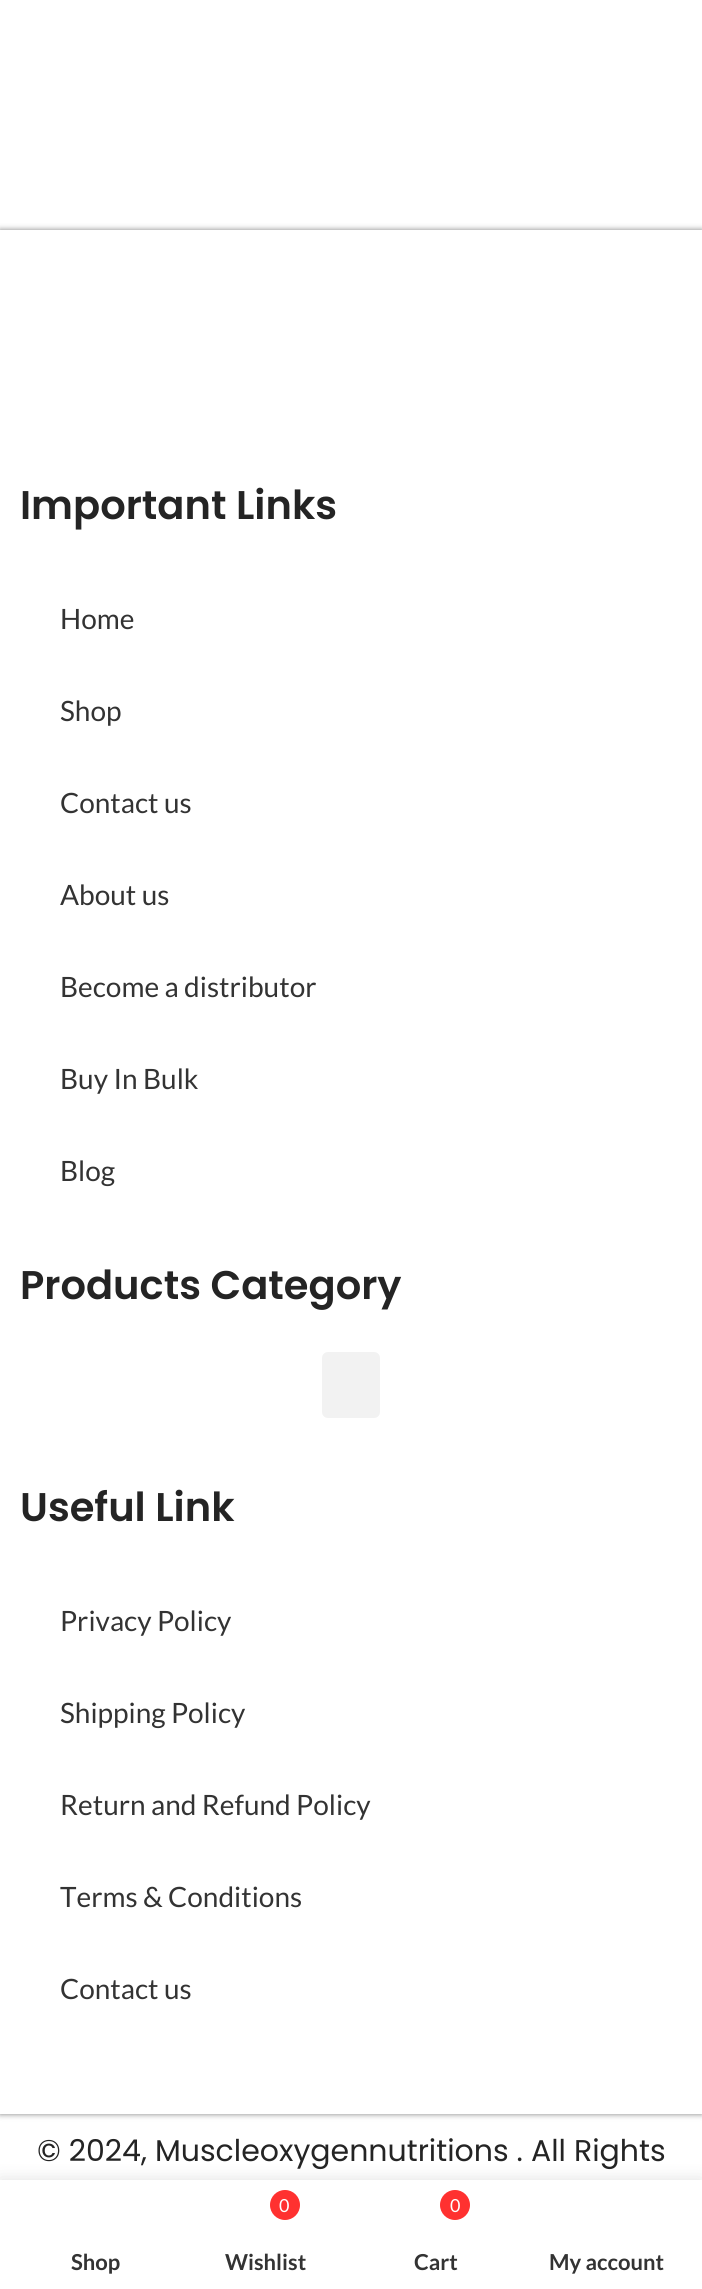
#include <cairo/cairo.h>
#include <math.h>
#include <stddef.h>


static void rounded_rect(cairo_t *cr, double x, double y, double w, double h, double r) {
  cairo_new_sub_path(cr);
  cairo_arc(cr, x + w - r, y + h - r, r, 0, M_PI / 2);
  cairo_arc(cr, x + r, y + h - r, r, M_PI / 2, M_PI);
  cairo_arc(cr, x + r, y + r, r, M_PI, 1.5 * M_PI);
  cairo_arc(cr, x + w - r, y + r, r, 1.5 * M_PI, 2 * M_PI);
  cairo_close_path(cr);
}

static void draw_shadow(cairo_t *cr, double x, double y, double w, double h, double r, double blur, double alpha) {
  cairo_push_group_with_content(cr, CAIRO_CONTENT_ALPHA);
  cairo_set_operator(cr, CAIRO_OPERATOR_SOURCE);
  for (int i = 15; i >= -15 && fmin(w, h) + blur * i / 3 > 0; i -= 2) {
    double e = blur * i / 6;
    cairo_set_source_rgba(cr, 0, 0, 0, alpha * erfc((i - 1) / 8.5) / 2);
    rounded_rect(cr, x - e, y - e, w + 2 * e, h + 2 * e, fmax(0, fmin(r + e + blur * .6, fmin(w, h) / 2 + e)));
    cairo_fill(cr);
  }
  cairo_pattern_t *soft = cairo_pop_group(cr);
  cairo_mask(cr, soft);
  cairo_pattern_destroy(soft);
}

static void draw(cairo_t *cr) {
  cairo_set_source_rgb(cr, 1, 1, 1);
  cairo_paint(cr);
  cairo_save(cr);
  cairo_set_fill_rule(cr, CAIRO_FILL_RULE_EVEN_ODD);
  cairo_new_path(cr);
  cairo_move_to(cr, 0, 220);
  cairo_line_to(cr, 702, 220);
  cairo_line_to(cr, 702, 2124);
  cairo_line_to(cr, 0, 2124);
  cairo_close_path(cr);
  cairo_move_to(cr, 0, 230);
  cairo_line_to(cr, 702, 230);
  cairo_line_to(cr, 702, 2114);
  cairo_line_to(cr, 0, 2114);
  cairo_close_path(cr);
  cairo_clip(cr);
  cairo_set_source_rgb(cr, 0, 0, 0);
  draw_shadow(cr, 0, 230, 702, 1884, 0, 3, 0.5);
  cairo_restore(cr);
  cairo_set_source_rgb(cr, 242 / 255.0, 242 / 255.0, 242 / 255.0);
  rounded_rect(cr, 322, 1352, 58, 66, 6);
  cairo_fill(cr);
  cairo_set_source_rgb(cr, 0, 0, 0);
  draw_shadow(cr, 0, 2180, 702, 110, 0, 9, 0.12);
  cairo_set_source_rgb(cr, 1, 1, 1);
  cairo_rectangle(cr, 0, 2180, 702, 109);
  cairo_fill(cr);
  cairo_set_source_rgb(cr, 1, 49 / 255.0, 48 / 255.0);
  cairo_arc(cr, 285, 2205, 15, 0, 2 * M_PI);
  cairo_fill(cr);
  cairo_arc(cr, 455, 2205, 15, 0, 2 * M_PI);
  cairo_fill(cr);
  cairo_select_font_face(cr, "Poppins SemiBold", CAIRO_FONT_SLANT_NORMAL, CAIRO_FONT_WEIGHT_NORMAL);
  cairo_set_font_size(cr, 40);
  cairo_set_source_rgb(cr, 36 / 255.0, 36 / 255.0, 36 / 255.0);
  cairo_move_to(cr, 20, 519);
  cairo_show_text(cr, "Important Links");
  cairo_select_font_face(cr, "Lato", CAIRO_FONT_SLANT_NORMAL, CAIRO_FONT_WEIGHT_NORMAL);
  cairo_set_font_size(cr, 28);
  cairo_set_source_rgb(cr, 51 / 255.0, 51 / 255.0, 51 / 255.0);
  cairo_move_to(cr, 60, 629);
  cairo_show_text(cr, "Home");
  cairo_move_to(cr, 60, 721);
  cairo_show_text(cr, "Shop");
  cairo_move_to(cr, 60, 813);
  cairo_show_text(cr, "Contact us");
  cairo_move_to(cr, 60, 905);
  cairo_show_text(cr, "About us");
  cairo_move_to(cr, 60, 997);
  cairo_show_text(cr, "Become a distributor");
  cairo_move_to(cr, 60, 1089);
  cairo_show_text(cr, "Buy In Bulk");
  cairo_move_to(cr, 60, 1181);
  cairo_show_text(cr, "Blog");
  cairo_select_font_face(cr, "Poppins SemiBold", CAIRO_FONT_SLANT_NORMAL, CAIRO_FONT_WEIGHT_NORMAL);
  cairo_set_font_size(cr, 40);
  cairo_set_source_rgb(cr, 36 / 255.0, 36 / 255.0, 36 / 255.0);
  cairo_move_to(cr, 20, 1299);
  cairo_show_text(cr, "Products Category");
  cairo_move_to(cr, 20, 1521);
  cairo_show_text(cr, "Useful Link");
  cairo_select_font_face(cr, "Lato", CAIRO_FONT_SLANT_NORMAL, CAIRO_FONT_WEIGHT_NORMAL);
  cairo_set_font_size(cr, 28);
  cairo_set_source_rgb(cr, 51 / 255.0, 51 / 255.0, 51 / 255.0);
  cairo_move_to(cr, 60, 1631);
  cairo_show_text(cr, "Privacy Policy");
  cairo_move_to(cr, 60, 1723);
  cairo_show_text(cr, "Shipping Policy");
  cairo_move_to(cr, 60, 1815);
  cairo_show_text(cr, "Return and Refund Policy");
  cairo_move_to(cr, 60, 1907);
  cairo_show_text(cr, "Terms & Conditions");
  cairo_move_to(cr, 60, 1999);
  cairo_show_text(cr, "Contact us");
  cairo_select_font_face(cr, "Poppins", CAIRO_FONT_SLANT_NORMAL, CAIRO_FONT_WEIGHT_NORMAL);
  cairo_set_font_size(cr, 30);
  cairo_set_source_rgb(cr, 36 / 255.0, 36 / 255.0, 36 / 255.0);
  cairo_move_to(cr, 37, 2161);
  cairo_show_text(cr, "© 2024, Muscleoxygennutritions . All Rights");
  cairo_select_font_face(cr, "Lato", CAIRO_FONT_SLANT_NORMAL, CAIRO_FONT_WEIGHT_BOLD);
  cairo_set_font_size(cr, 22);
  cairo_set_source_rgb(cr, 51 / 255.0, 51 / 255.0, 51 / 255.0);
  cairo_move_to(cr, 71, 2270);
  cairo_show_text(cr, "Shop");
  cairo_select_font_face(cr, "Lato", CAIRO_FONT_SLANT_NORMAL, CAIRO_FONT_WEIGHT_NORMAL);
  cairo_set_font_size(cr, 18);
  cairo_set_source_rgb(cr, 1, 1, 1);
  cairo_move_to(cr, 279, 2212);
  cairo_show_text(cr, "0");
  cairo_select_font_face(cr, "Lato", CAIRO_FONT_SLANT_NORMAL, CAIRO_FONT_WEIGHT_BOLD);
  cairo_set_font_size(cr, 22);
  cairo_set_source_rgb(cr, 51 / 255.0, 51 / 255.0, 51 / 255.0);
  cairo_move_to(cr, 225, 2270);
  cairo_show_text(cr, "Wishlist");
  cairo_select_font_face(cr, "Lato", CAIRO_FONT_SLANT_NORMAL, CAIRO_FONT_WEIGHT_NORMAL);
  cairo_set_font_size(cr, 18);
  cairo_set_source_rgb(cr, 1, 1, 1);
  cairo_move_to(cr, 450, 2212);
  cairo_show_text(cr, "0");
  cairo_select_font_face(cr, "Lato", CAIRO_FONT_SLANT_NORMAL, CAIRO_FONT_WEIGHT_BOLD);
  cairo_set_font_size(cr, 22);
  cairo_set_source_rgb(cr, 51 / 255.0, 51 / 255.0, 51 / 255.0);
  cairo_move_to(cr, 414, 2270);
  cairo_show_text(cr, "Cart");
  cairo_move_to(cr, 549, 2270);
  cairo_show_text(cr, "My account");
}

int main(void) {
  cairo_surface_t *surface = cairo_image_surface_create(CAIRO_FORMAT_RGB24, 702, 2289);
  cairo_t *cr = cairo_create(surface);
  cairo_font_options_t *options = cairo_font_options_create();
  cairo_font_options_set_hint_metrics(options, CAIRO_HINT_METRICS_OFF);
  cairo_font_options_set_hint_style(options, CAIRO_HINT_STYLE_NONE);
  cairo_set_font_options(cr, options);
  cairo_set_miter_limit(cr, 4);
  draw(cr);
  cairo_surface_write_to_png(surface, "out.png");
  cairo_font_options_destroy(options);
  cairo_destroy(cr);
  cairo_surface_destroy(surface);
  return 0;
}
